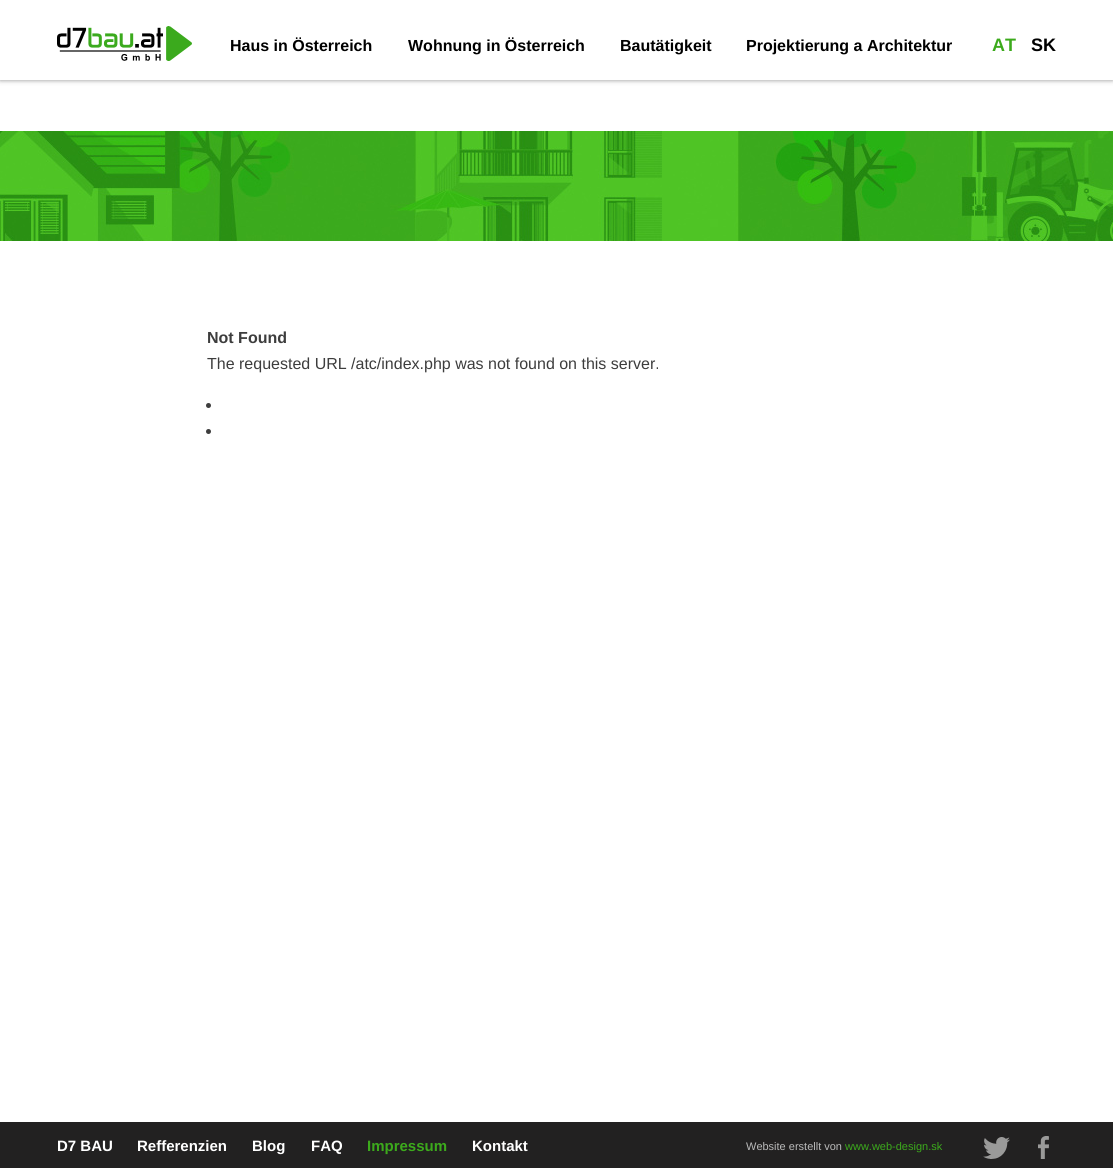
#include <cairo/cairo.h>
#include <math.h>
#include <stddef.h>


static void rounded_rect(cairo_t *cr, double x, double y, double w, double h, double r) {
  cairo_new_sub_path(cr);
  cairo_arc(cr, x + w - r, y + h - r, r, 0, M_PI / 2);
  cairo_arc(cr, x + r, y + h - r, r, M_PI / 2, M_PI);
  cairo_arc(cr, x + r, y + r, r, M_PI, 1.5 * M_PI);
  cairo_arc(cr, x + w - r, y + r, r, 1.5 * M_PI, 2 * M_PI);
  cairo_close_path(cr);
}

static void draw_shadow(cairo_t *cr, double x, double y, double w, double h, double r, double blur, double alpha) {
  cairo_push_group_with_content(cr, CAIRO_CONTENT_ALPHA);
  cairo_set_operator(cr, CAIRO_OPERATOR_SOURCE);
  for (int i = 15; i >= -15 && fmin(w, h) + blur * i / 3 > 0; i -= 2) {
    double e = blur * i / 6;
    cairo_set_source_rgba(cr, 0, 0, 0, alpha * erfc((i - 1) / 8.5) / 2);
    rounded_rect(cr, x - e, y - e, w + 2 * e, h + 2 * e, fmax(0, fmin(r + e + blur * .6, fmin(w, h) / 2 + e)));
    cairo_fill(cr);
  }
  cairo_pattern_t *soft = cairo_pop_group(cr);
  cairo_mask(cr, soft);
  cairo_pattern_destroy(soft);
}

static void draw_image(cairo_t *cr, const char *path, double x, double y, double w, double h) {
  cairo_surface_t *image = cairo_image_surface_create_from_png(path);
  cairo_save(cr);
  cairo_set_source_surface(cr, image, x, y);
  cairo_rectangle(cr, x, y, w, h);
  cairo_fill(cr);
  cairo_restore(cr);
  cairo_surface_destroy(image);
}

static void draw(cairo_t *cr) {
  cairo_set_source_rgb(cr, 1, 1, 1);
  cairo_paint(cr);
  cairo_set_source_rgb(cr, 0, 0, 0);
  draw_shadow(cr, 0, 0, 1113, 80, 0, 2.5, 0.45);
  cairo_set_source_rgb(cr, 1, 1, 1);
  cairo_rectangle(cr, 0, 0, 1113, 80);
  cairo_fill(cr);
  draw_image(cr, "images/1.png", 57, 26, 135, 35);
  draw_image(cr, "images/2.png", 0, 131, 1113, 110);
  cairo_set_source_rgb(cr, 61 / 255.0, 61 / 255.0, 61 / 255.0);
  cairo_arc(cr, 208.5, 405.5, 2.5, 0, 2 * M_PI);
  cairo_fill(cr);
  cairo_arc(cr, 208.5, 431.5, 2.5, 0, 2 * M_PI);
  cairo_fill(cr);
  cairo_set_source_rgb(cr, 34 / 255.0, 33 / 255.0, 33 / 255.0);
  cairo_rectangle(cr, 0, 1122, 1113, 46);
  cairo_fill(cr);
  draw_image(cr, "images/3.png", 983, 1137, 27, 22);
  draw_image(cr, "images/4.png", 1038, 1136, 11, 23);
  cairo_select_font_face(cr, "Liberation Sans", CAIRO_FONT_SLANT_NORMAL, CAIRO_FONT_WEIGHT_BOLD);
  cairo_set_font_size(cr, 16);
  cairo_set_source_rgb(cr, 0, 0, 0);
  cairo_move_to(cr, 230, 51);
  cairo_show_text(cr, "Haus in Österreich");
  cairo_move_to(cr, 408, 51);
  cairo_show_text(cr, "Wohnung in Österreich");
  cairo_move_to(cr, 620, 51);
  cairo_show_text(cr, "Bautätigkeit");
  cairo_move_to(cr, 746, 51);
  cairo_show_text(cr, "Projektierung a Architektur");
  cairo_set_font_size(cr, 18);
  cairo_set_source_rgb(cr, 60 / 255.0, 170 / 255.0, 28 / 255.0);
  cairo_move_to(cr, 992, 51);
  cairo_show_text(cr, "AT");
  cairo_set_source_rgb(cr, 0, 0, 0);
  cairo_move_to(cr, 1031, 51);
  cairo_show_text(cr, "SK");
  cairo_set_font_size(cr, 16);
  cairo_set_source_rgb(cr, 61 / 255.0, 61 / 255.0, 61 / 255.0);
  cairo_move_to(cr, 207, 343);
  cairo_show_text(cr, "Not Found");
  cairo_select_font_face(cr, "Liberation Sans", CAIRO_FONT_SLANT_NORMAL, CAIRO_FONT_WEIGHT_NORMAL);
  cairo_move_to(cr, 207, 369);
  cairo_show_text(cr, "The requested URL /atc/index.php was not found on this server.");
  cairo_select_font_face(cr, "Liberation Sans", CAIRO_FONT_SLANT_NORMAL, CAIRO_FONT_WEIGHT_BOLD);
  cairo_set_font_size(cr, 15);
  cairo_set_source_rgb(cr, 1, 1, 1);
  cairo_move_to(cr, 57, 1151);
  cairo_show_text(cr, "D7 BAU");
  cairo_move_to(cr, 137, 1151);
  cairo_show_text(cr, "Refferenzien");
  cairo_move_to(cr, 252, 1151);
  cairo_show_text(cr, "Blog");
  cairo_move_to(cr, 311, 1151);
  cairo_show_text(cr, "FAQ");
  cairo_set_source_rgb(cr, 60 / 255.0, 170 / 255.0, 28 / 255.0);
  cairo_move_to(cr, 367, 1151);
  cairo_show_text(cr, "Impressum");
  cairo_set_source_rgb(cr, 1, 1, 1);
  cairo_move_to(cr, 472, 1151);
  cairo_show_text(cr, "Kontakt");
  cairo_select_font_face(cr, "Liberation Sans", CAIRO_FONT_SLANT_NORMAL, CAIRO_FONT_WEIGHT_NORMAL);
  cairo_set_font_size(cr, 11);
  cairo_set_source_rgb(cr, 187 / 255.0, 187 / 255.0, 187 / 255.0);
  cairo_move_to(cr, 746, 1150);
  cairo_show_text(cr, "Website erstellt von");
  cairo_set_source_rgb(cr, 60 / 255.0, 170 / 255.0, 28 / 255.0);
  cairo_move_to(cr, 845, 1150);
  cairo_show_text(cr, "www.web-design.sk");
}

int main(void) {
  cairo_surface_t *surface = cairo_image_surface_create(CAIRO_FORMAT_RGB24, 1113, 1168);
  cairo_t *cr = cairo_create(surface);
  cairo_font_options_t *options = cairo_font_options_create();
  cairo_font_options_set_hint_metrics(options, CAIRO_HINT_METRICS_OFF);
  cairo_font_options_set_hint_style(options, CAIRO_HINT_STYLE_NONE);
  cairo_set_font_options(cr, options);
  cairo_set_miter_limit(cr, 4);
  draw(cr);
  cairo_surface_write_to_png(surface, "out.png");
  cairo_font_options_destroy(options);
  cairo_destroy(cr);
  cairo_surface_destroy(surface);
  return 0;
}
